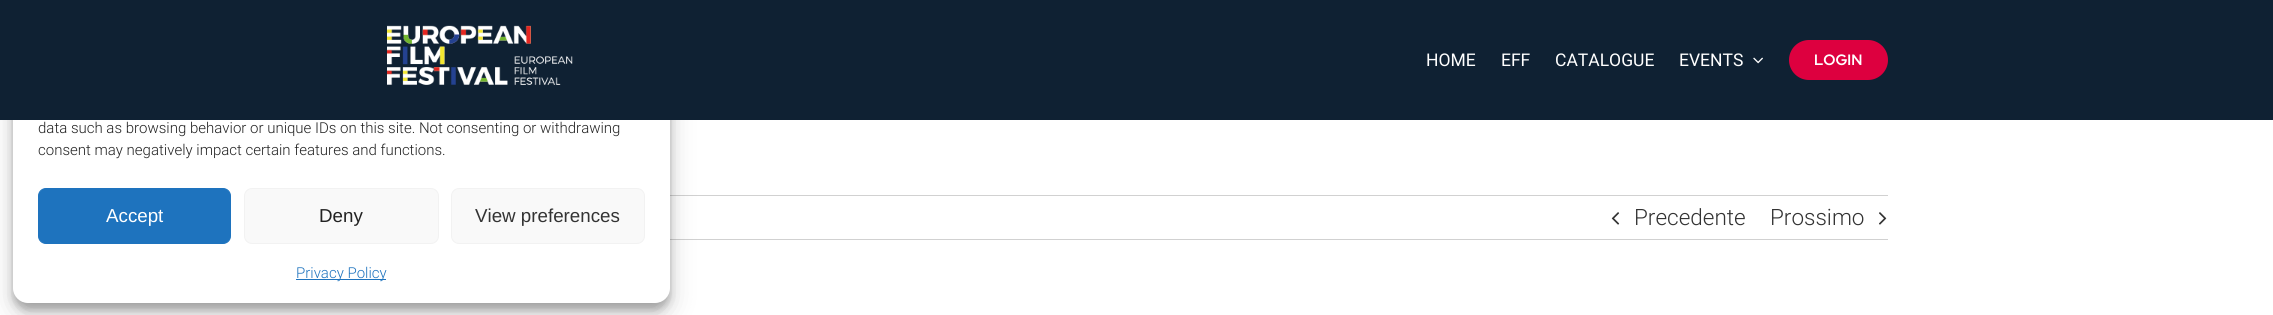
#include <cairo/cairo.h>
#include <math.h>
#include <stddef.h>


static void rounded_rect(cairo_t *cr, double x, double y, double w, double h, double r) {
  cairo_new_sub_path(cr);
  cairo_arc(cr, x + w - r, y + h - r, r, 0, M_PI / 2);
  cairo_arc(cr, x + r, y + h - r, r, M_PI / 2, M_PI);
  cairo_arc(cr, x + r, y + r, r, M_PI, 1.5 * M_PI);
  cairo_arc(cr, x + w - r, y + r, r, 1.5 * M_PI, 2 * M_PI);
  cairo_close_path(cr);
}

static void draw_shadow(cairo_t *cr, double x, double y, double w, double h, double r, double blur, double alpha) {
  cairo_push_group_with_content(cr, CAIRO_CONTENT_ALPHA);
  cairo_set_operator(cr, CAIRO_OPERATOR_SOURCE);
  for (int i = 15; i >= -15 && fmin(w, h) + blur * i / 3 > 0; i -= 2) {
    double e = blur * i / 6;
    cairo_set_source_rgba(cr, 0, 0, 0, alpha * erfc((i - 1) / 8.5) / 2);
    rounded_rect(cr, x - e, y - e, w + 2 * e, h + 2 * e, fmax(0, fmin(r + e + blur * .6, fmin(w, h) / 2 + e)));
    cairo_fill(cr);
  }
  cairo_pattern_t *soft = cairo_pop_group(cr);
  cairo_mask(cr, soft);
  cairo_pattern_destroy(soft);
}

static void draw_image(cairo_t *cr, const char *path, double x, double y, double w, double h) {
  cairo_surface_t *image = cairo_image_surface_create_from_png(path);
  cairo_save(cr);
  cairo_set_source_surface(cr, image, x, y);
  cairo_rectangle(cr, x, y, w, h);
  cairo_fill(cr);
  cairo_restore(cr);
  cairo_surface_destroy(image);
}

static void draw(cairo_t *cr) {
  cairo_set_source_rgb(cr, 1, 1, 1);
  cairo_paint(cr);
  cairo_set_source_rgb(cr, 209 / 255.0, 209 / 255.0, 209 / 255.0);
  cairo_rectangle(cr, 670, 195, 1218, 1);
  cairo_fill(cr);
  cairo_rectangle(cr, 670, 239, 1218, 1);
  cairo_fill(cr);
  cairo_set_source_rgb(cr, 0, 0, 0);
  draw_shadow(cr, 13, 20, 657, 290, 15, 4, 0.23);
  draw_shadow(cr, 13, 25, 657, 290, 15, 12.5, 0.19);
  cairo_set_source_rgb(cr, 1, 1, 1);
  rounded_rect(cr, 13, 13, 657, 290, 15);
  cairo_fill(cr);
  cairo_set_source_rgb(cr, 30 / 255.0, 115 / 255.0, 190 / 255.0);
  rounded_rect(cr, 38.5, 188.5, 192, 55, 7.5);
  cairo_fill_preserve(cr);
  cairo_set_line_width(cr, 1);
  cairo_stroke(cr);
  cairo_set_source_rgb(cr, 249 / 255.0, 249 / 255.0, 249 / 255.0);
  rounded_rect(cr, 244.5, 188.5, 194, 55, 7.5);
  cairo_fill_preserve(cr);
  cairo_set_source_rgb(cr, 242 / 255.0, 242 / 255.0, 242 / 255.0);
  cairo_stroke(cr);
  cairo_set_source_rgb(cr, 249 / 255.0, 249 / 255.0, 249 / 255.0);
  rounded_rect(cr, 451.5, 188.5, 193, 55, 7.5);
  cairo_fill_preserve(cr);
  cairo_set_source_rgb(cr, 242 / 255.0, 242 / 255.0, 242 / 255.0);
  cairo_stroke(cr);
  cairo_set_source_rgb(cr, 30 / 255.0, 115 / 255.0, 190 / 255.0);
  cairo_rectangle(cr, 296, 279, 90, 1);
  cairo_fill(cr);
  cairo_set_source_rgb(cr, 15 / 255.0, 33 / 255.0, 51 / 255.0);
  cairo_rectangle(cr, 0, 0, 2273, 120);
  cairo_fill(cr);
  draw_image(cr, "images/1.png", 387, 25, 186, 60);
  draw_image(cr, "images/2.png", 1753, 57, 10, 7);
  cairo_set_source_rgb(cr, 221 / 255.0, 0, 63 / 255.0);
  rounded_rect(cr, 1789, 40, 99, 40, 20);
  cairo_fill(cr);
  draw_image(cr, "images/3.png", 1611, 212, 9, 13);
  draw_image(cr, "images/4.png", 1879, 212, 8, 13);
  cairo_select_font_face(cr, "Roboto Light", CAIRO_FONT_SLANT_NORMAL, CAIRO_FONT_WEIGHT_NORMAL);
  cairo_set_font_size(cr, 15);
  cairo_set_source_rgb(cr, 34 / 255.0, 34 / 255.0, 34 / 255.0);
  cairo_move_to(cr, 38, 133);
  cairo_show_text(cr, "data such as browsing behavior or unique IDs on this site. Not consenting or withdrawing");
  cairo_move_to(cr, 38, 155);
  cairo_show_text(cr, "consent may negatively impact certain features and functions.");
  cairo_select_font_face(cr, "Liberation Sans", CAIRO_FONT_SLANT_NORMAL, CAIRO_FONT_WEIGHT_NORMAL);
  cairo_set_font_size(cr, 18.75);
  cairo_set_source_rgb(cr, 1, 1, 1);
  cairo_move_to(cr, 106, 222);
  cairo_show_text(cr, "Accept");
  cairo_set_source_rgb(cr, 34 / 255.0, 34 / 255.0, 34 / 255.0);
  cairo_move_to(cr, 319, 222);
  cairo_show_text(cr, "Deny");
  cairo_set_source_rgb(cr, 51 / 255.0, 51 / 255.0, 51 / 255.0);
  cairo_move_to(cr, 475, 222);
  cairo_show_text(cr, "View preferences");
  cairo_select_font_face(cr, "Roboto Light", CAIRO_FONT_SLANT_NORMAL, CAIRO_FONT_WEIGHT_NORMAL);
  cairo_set_font_size(cr, 15);
  cairo_set_source_rgb(cr, 30 / 255.0, 115 / 255.0, 190 / 255.0);
  cairo_move_to(cr, 296, 278);
  cairo_show_text(cr, "Privacy Policy");
  cairo_select_font_face(cr, "Roboto", CAIRO_FONT_SLANT_NORMAL, CAIRO_FONT_WEIGHT_NORMAL);
  cairo_set_font_size(cr, 17.5);
  cairo_set_source_rgb(cr, 1, 1, 1);
  cairo_move_to(cr, 1426, 66);
  cairo_show_text(cr, "HOME");
  cairo_move_to(cr, 1501, 66);
  cairo_show_text(cr, "EFF");
  cairo_move_to(cr, 1555, 66);
  cairo_show_text(cr, "CATALOGUE");
  cairo_move_to(cr, 1679, 66);
  cairo_show_text(cr, "EVENTS");
  cairo_select_font_face(cr, "Red Hat Display", CAIRO_FONT_SLANT_NORMAL, CAIRO_FONT_WEIGHT_BOLD);
  cairo_set_font_size(cr, 15);
  cairo_move_to(cr, 1814, 65);
  cairo_show_text(cr, "LOGIN");
  cairo_select_font_face(cr, "Roboto Light", CAIRO_FONT_SLANT_NORMAL, CAIRO_FONT_WEIGHT_NORMAL);
  cairo_set_font_size(cr, 22.5);
  cairo_set_source_rgb(cr, 51 / 255.0, 51 / 255.0, 51 / 255.0);
  cairo_move_to(cr, 1634, 225);
  cairo_show_text(cr, "Precedente");
  cairo_move_to(cr, 1770, 225);
  cairo_show_text(cr, "Prossimo");
}

int main(void) {
  cairo_surface_t *surface = cairo_image_surface_create(CAIRO_FORMAT_RGB24, 2273, 315);
  cairo_t *cr = cairo_create(surface);
  cairo_font_options_t *options = cairo_font_options_create();
  cairo_font_options_set_hint_metrics(options, CAIRO_HINT_METRICS_OFF);
  cairo_font_options_set_hint_style(options, CAIRO_HINT_STYLE_NONE);
  cairo_set_font_options(cr, options);
  cairo_set_miter_limit(cr, 4);
  draw(cr);
  cairo_surface_write_to_png(surface, "out.png");
  cairo_font_options_destroy(options);
  cairo_destroy(cr);
  cairo_surface_destroy(surface);
  return 0;
}
